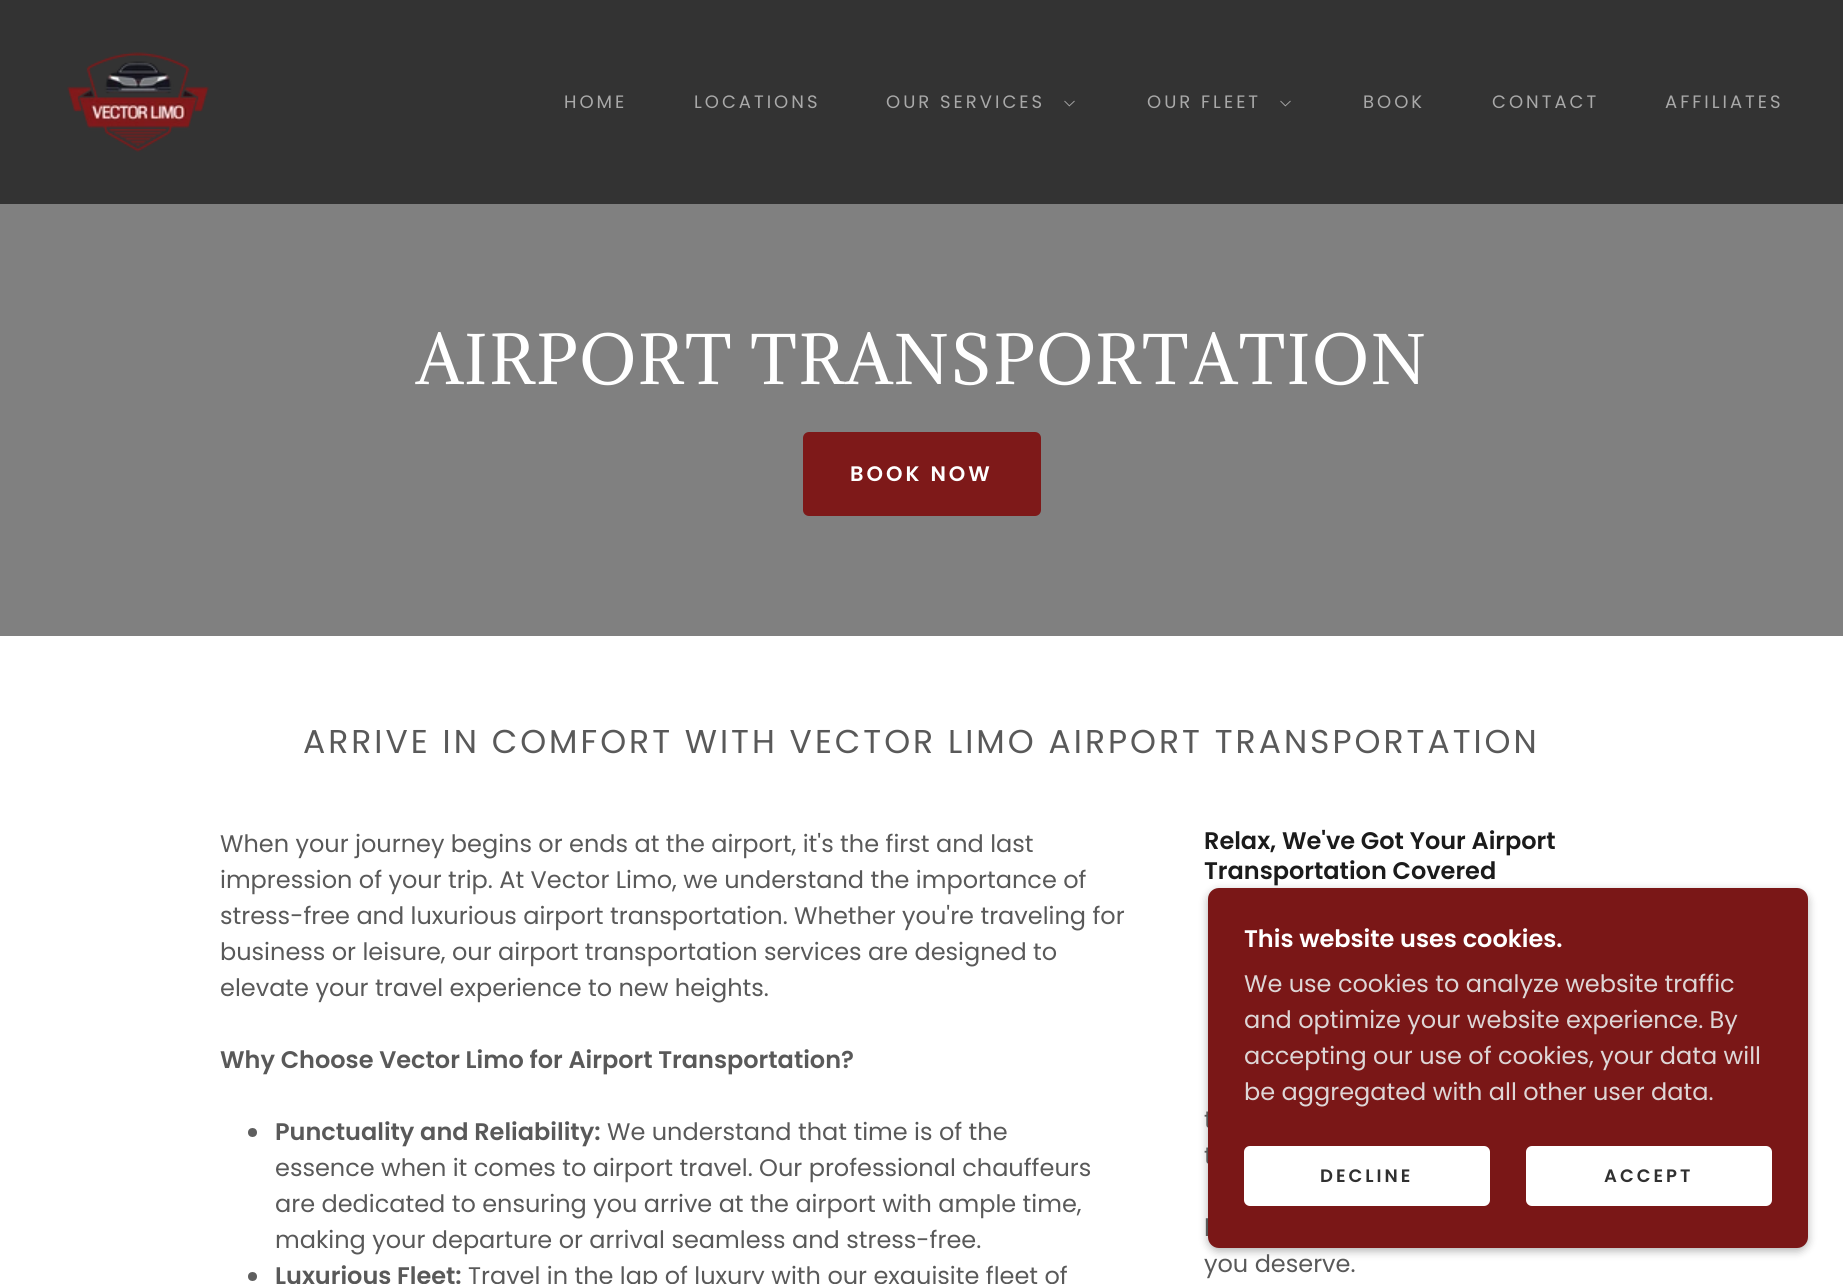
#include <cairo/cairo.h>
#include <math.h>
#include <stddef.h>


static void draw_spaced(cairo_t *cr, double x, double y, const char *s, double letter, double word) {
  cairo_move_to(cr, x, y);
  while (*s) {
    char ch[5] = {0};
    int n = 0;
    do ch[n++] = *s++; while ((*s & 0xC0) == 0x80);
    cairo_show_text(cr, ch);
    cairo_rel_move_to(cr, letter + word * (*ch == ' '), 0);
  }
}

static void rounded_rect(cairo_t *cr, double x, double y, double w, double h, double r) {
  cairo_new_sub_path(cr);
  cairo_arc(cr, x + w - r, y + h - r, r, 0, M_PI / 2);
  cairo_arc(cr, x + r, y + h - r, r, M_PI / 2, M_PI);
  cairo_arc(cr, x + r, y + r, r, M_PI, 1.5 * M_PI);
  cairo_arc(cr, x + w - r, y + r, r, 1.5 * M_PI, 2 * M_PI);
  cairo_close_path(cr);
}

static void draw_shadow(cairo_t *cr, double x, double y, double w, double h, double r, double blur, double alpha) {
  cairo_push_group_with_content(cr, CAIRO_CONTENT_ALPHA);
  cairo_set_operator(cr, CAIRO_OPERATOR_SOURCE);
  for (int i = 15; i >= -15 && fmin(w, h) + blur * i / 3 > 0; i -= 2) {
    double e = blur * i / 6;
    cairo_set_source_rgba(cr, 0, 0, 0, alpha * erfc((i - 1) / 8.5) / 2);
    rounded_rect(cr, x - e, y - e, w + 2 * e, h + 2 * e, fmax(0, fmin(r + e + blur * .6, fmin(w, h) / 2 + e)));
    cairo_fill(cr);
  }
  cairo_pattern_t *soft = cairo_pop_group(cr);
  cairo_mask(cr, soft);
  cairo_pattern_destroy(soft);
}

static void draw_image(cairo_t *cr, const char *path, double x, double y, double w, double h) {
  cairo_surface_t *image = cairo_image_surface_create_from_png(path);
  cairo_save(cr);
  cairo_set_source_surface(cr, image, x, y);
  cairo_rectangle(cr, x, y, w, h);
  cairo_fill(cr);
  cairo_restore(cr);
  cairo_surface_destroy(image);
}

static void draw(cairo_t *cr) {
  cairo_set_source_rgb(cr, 128 / 255.0, 128 / 255.0, 128 / 255.0);
  cairo_paint(cr);
  cairo_set_source_rgb(cr, 51 / 255.0, 51 / 255.0, 51 / 255.0);
  cairo_rectangle(cr, 0, 0, 1843, 204);
  cairo_fill(cr);
  draw_image(cr, "images/1.png", 67, 52, 142, 100);
  draw_image(cr, "images/2.png", 1064, 100, 11, 7);
  draw_image(cr, "images/2.png", 1280, 100, 11, 7);
  cairo_set_source_rgb(cr, 126 / 255.0, 25 / 255.0, 25 / 255.0);
  rounded_rect(cr, 803, 432, 238, 84, 6);
  cairo_fill(cr);
  cairo_set_source_rgb(cr, 1, 1, 1);
  cairo_rectangle(cr, 0, 636, 1843, 648);
  cairo_fill(cr);
  cairo_set_source_rgb(cr, 94 / 255.0, 94 / 255.0, 94 / 255.0);
  cairo_arc(cr, 252.5, 1132.5, 4.5, 0, 2 * M_PI);
  cairo_fill(cr);
  cairo_arc(cr, 252.5, 1276.5, 4.5, 0, 2 * M_PI);
  cairo_fill(cr);
  cairo_set_source_rgb(cr, 0, 0, 0);
  draw_shadow(cr, 1208, 891, 600, 360, 11, 4.5, 0.3);
  cairo_select_font_face(cr, "Poppins", CAIRO_FONT_SLANT_NORMAL, CAIRO_FONT_WEIGHT_NORMAL);
  cairo_set_font_size(cr, 18);
  cairo_set_source_rgb(cr, 169 / 255.0, 169 / 255.0, 169 / 255.0);
  draw_spaced(cr, 564, 108, "HOME", 3, 0);
  draw_spaced(cr, 694, 108, "LOCATIONS", 3, 0);
  draw_spaced(cr, 886, 108, "OUR SERVICES", 3, 0);
  draw_spaced(cr, 1147, 108, "OUR FLEET", 3, 0);
  draw_spaced(cr, 1363, 108, "BOOK", 3, 0);
  draw_spaced(cr, 1492, 108, "CONTACT", 3, 0);
  draw_spaced(cr, 1665, 108, "AFFILIATES", 3, 0);
  cairo_select_font_face(cr, "Adamina", CAIRO_FONT_SLANT_NORMAL, CAIRO_FONT_WEIGHT_NORMAL);
  cairo_set_font_size(cr, 63);
  cairo_set_source_rgb(cr, 1, 1, 1);
  draw_spaced(cr, 416, 384, "AIRPORT TRANSPORTATION", 1.5, 0);
  cairo_select_font_face(cr, "Poppins SemiBold", CAIRO_FONT_SLANT_NORMAL, CAIRO_FONT_WEIGHT_NORMAL);
  cairo_set_font_size(cr, 21);
  draw_spaced(cr, 850, 481, "BOOK NOW", 3, 0);
  cairo_select_font_face(cr, "Poppins", CAIRO_FONT_SLANT_NORMAL, CAIRO_FONT_WEIGHT_NORMAL);
  cairo_set_font_size(cr, 33);
  cairo_set_source_rgb(cr, 89 / 255.0, 89 / 255.0, 89 / 255.0);
  draw_spaced(cr, 303, 753, "ARRIVE IN COMFORT WITH VECTOR LIMO AIRPORT TRANSPORTATION", 3, 0);
  cairo_set_font_size(cr, 24);
  cairo_move_to(cr, 220, 852);
  cairo_show_text(cr, "When your journey begins or ends at the airport, it's the first and last");
  cairo_move_to(cr, 220, 888);
  cairo_show_text(cr, "impression of your trip. At Vector Limo, we understand the importance of");
  cairo_move_to(cr, 220, 924);
  cairo_show_text(cr, "stress-free and luxurious airport transportation. Whether you're traveling for");
  cairo_move_to(cr, 220, 960);
  cairo_show_text(cr, "business or leisure, our airport transportation services are designed to");
  cairo_move_to(cr, 220, 996);
  cairo_show_text(cr, "elevate your travel experience to new heights.");
  cairo_select_font_face(cr, "Poppins SemiBold", CAIRO_FONT_SLANT_NORMAL, CAIRO_FONT_WEIGHT_NORMAL);
  cairo_move_to(cr, 220, 1068);
  cairo_show_text(cr, "Why Choose Vector Limo for Airport Transportation?");
  cairo_move_to(cr, 275, 1140);
  cairo_show_text(cr, "Punctuality and Reliability:");
  cairo_select_font_face(cr, "Poppins", CAIRO_FONT_SLANT_NORMAL, CAIRO_FONT_WEIGHT_NORMAL);
  cairo_move_to(cr, 607, 1140);
  cairo_show_text(cr, "We understand that time is of the");
  cairo_move_to(cr, 275, 1176);
  cairo_show_text(cr, "essence when it comes to airport travel. Our professional chauffeurs");
  cairo_move_to(cr, 275, 1212);
  cairo_show_text(cr, "are dedicated to ensuring you arrive at the airport with ample time,");
  cairo_move_to(cr, 275, 1248);
  cairo_show_text(cr, "making your departure or arrival seamless and stress-free.");
  cairo_select_font_face(cr, "Poppins SemiBold", CAIRO_FONT_SLANT_NORMAL, CAIRO_FONT_WEIGHT_NORMAL);
  cairo_move_to(cr, 275, 1284);
  cairo_show_text(cr, "Luxurious Fleet:");
  cairo_select_font_face(cr, "Poppins", CAIRO_FONT_SLANT_NORMAL, CAIRO_FONT_WEIGHT_NORMAL);
  cairo_move_to(cr, 468, 1284);
  cairo_show_text(cr, "Travel in the lap of luxury with our exquisite fleet of");
  cairo_select_font_face(cr, "Poppins SemiBold", CAIRO_FONT_SLANT_NORMAL, CAIRO_FONT_WEIGHT_NORMAL);
  cairo_set_source_rgb(cr, 27 / 255.0, 27 / 255.0, 27 / 255.0);
  cairo_move_to(cr, 1204, 849);
  cairo_show_text(cr, "Relax, We've Got Your Airport");
  cairo_move_to(cr, 1204, 879);
  cairo_show_text(cr, "Transportation Covered");
  cairo_select_font_face(cr, "Poppins", CAIRO_FONT_SLANT_NORMAL, CAIRO_FONT_WEIGHT_NORMAL);
  cairo_set_source_rgb(cr, 89 / 255.0, 89 / 255.0, 89 / 255.0);
  cairo_move_to(cr, 1204, 1128);
  cairo_show_text(cr, "t");
  cairo_move_to(cr, 1204, 1164);
  cairo_show_text(cr, "t");
  cairo_move_to(cr, 1204, 1236);
  cairo_show_text(cr, "l");
  cairo_move_to(cr, 1204, 1272);
  cairo_show_text(cr, "you deserve.");
  cairo_set_source_rgb(cr, 122 / 255.0, 23 / 255.0, 23 / 255.0);
  rounded_rect(cr, 1208, 888, 600, 360, 11);
  cairo_fill(cr);
  cairo_select_font_face(cr, "Poppins SemiBold", CAIRO_FONT_SLANT_NORMAL, CAIRO_FONT_WEIGHT_NORMAL);
  cairo_set_source_rgb(cr, 1, 1, 1);
  cairo_move_to(cr, 1244, 947);
  cairo_show_text(cr, "This website uses cookies.");
  cairo_select_font_face(cr, "Poppins", CAIRO_FONT_SLANT_NORMAL, CAIRO_FONT_WEIGHT_NORMAL);
  cairo_set_source_rgb(cr, 222 / 255.0, 214 / 255.0, 214 / 255.0);
  cairo_move_to(cr, 1244, 992);
  cairo_show_text(cr, "We use cookies to analyze website traffic");
  cairo_move_to(cr, 1244, 1028);
  cairo_show_text(cr, "and optimize your website experience. By");
  cairo_move_to(cr, 1244, 1064);
  cairo_show_text(cr, "accepting our use of cookies, your data will");
  cairo_move_to(cr, 1244, 1100);
  cairo_show_text(cr, "be aggregated with all other user data.");
  cairo_set_source_rgb(cr, 1, 1, 1);
  rounded_rect(cr, 1244, 1146, 246, 60, 6);
  cairo_fill(cr);
  cairo_select_font_face(cr, "Poppins SemiBold", CAIRO_FONT_SLANT_NORMAL, CAIRO_FONT_WEIGHT_NORMAL);
  cairo_set_font_size(cr, 18);
  cairo_set_source_rgb(cr, 48 / 255.0, 48 / 255.0, 48 / 255.0);
  draw_spaced(cr, 1320, 1182, "DECLINE", 3, 0);
  cairo_set_source_rgb(cr, 1, 1, 1);
  rounded_rect(cr, 1526, 1146, 246, 60, 6);
  cairo_fill(cr);
  cairo_set_source_rgb(cr, 48 / 255.0, 48 / 255.0, 48 / 255.0);
  draw_spaced(cr, 1604, 1182, "ACCEPT", 3, 0);
}

int main(void) {
  cairo_surface_t *surface = cairo_image_surface_create(CAIRO_FORMAT_RGB24, 1843, 1284);
  cairo_t *cr = cairo_create(surface);
  cairo_font_options_t *options = cairo_font_options_create();
  cairo_font_options_set_hint_metrics(options, CAIRO_HINT_METRICS_OFF);
  cairo_font_options_set_hint_style(options, CAIRO_HINT_STYLE_NONE);
  cairo_set_font_options(cr, options);
  cairo_set_miter_limit(cr, 4);
  draw(cr);
  cairo_surface_write_to_png(surface, "out.png");
  cairo_font_options_destroy(options);
  cairo_destroy(cr);
  cairo_surface_destroy(surface);
  return 0;
}
